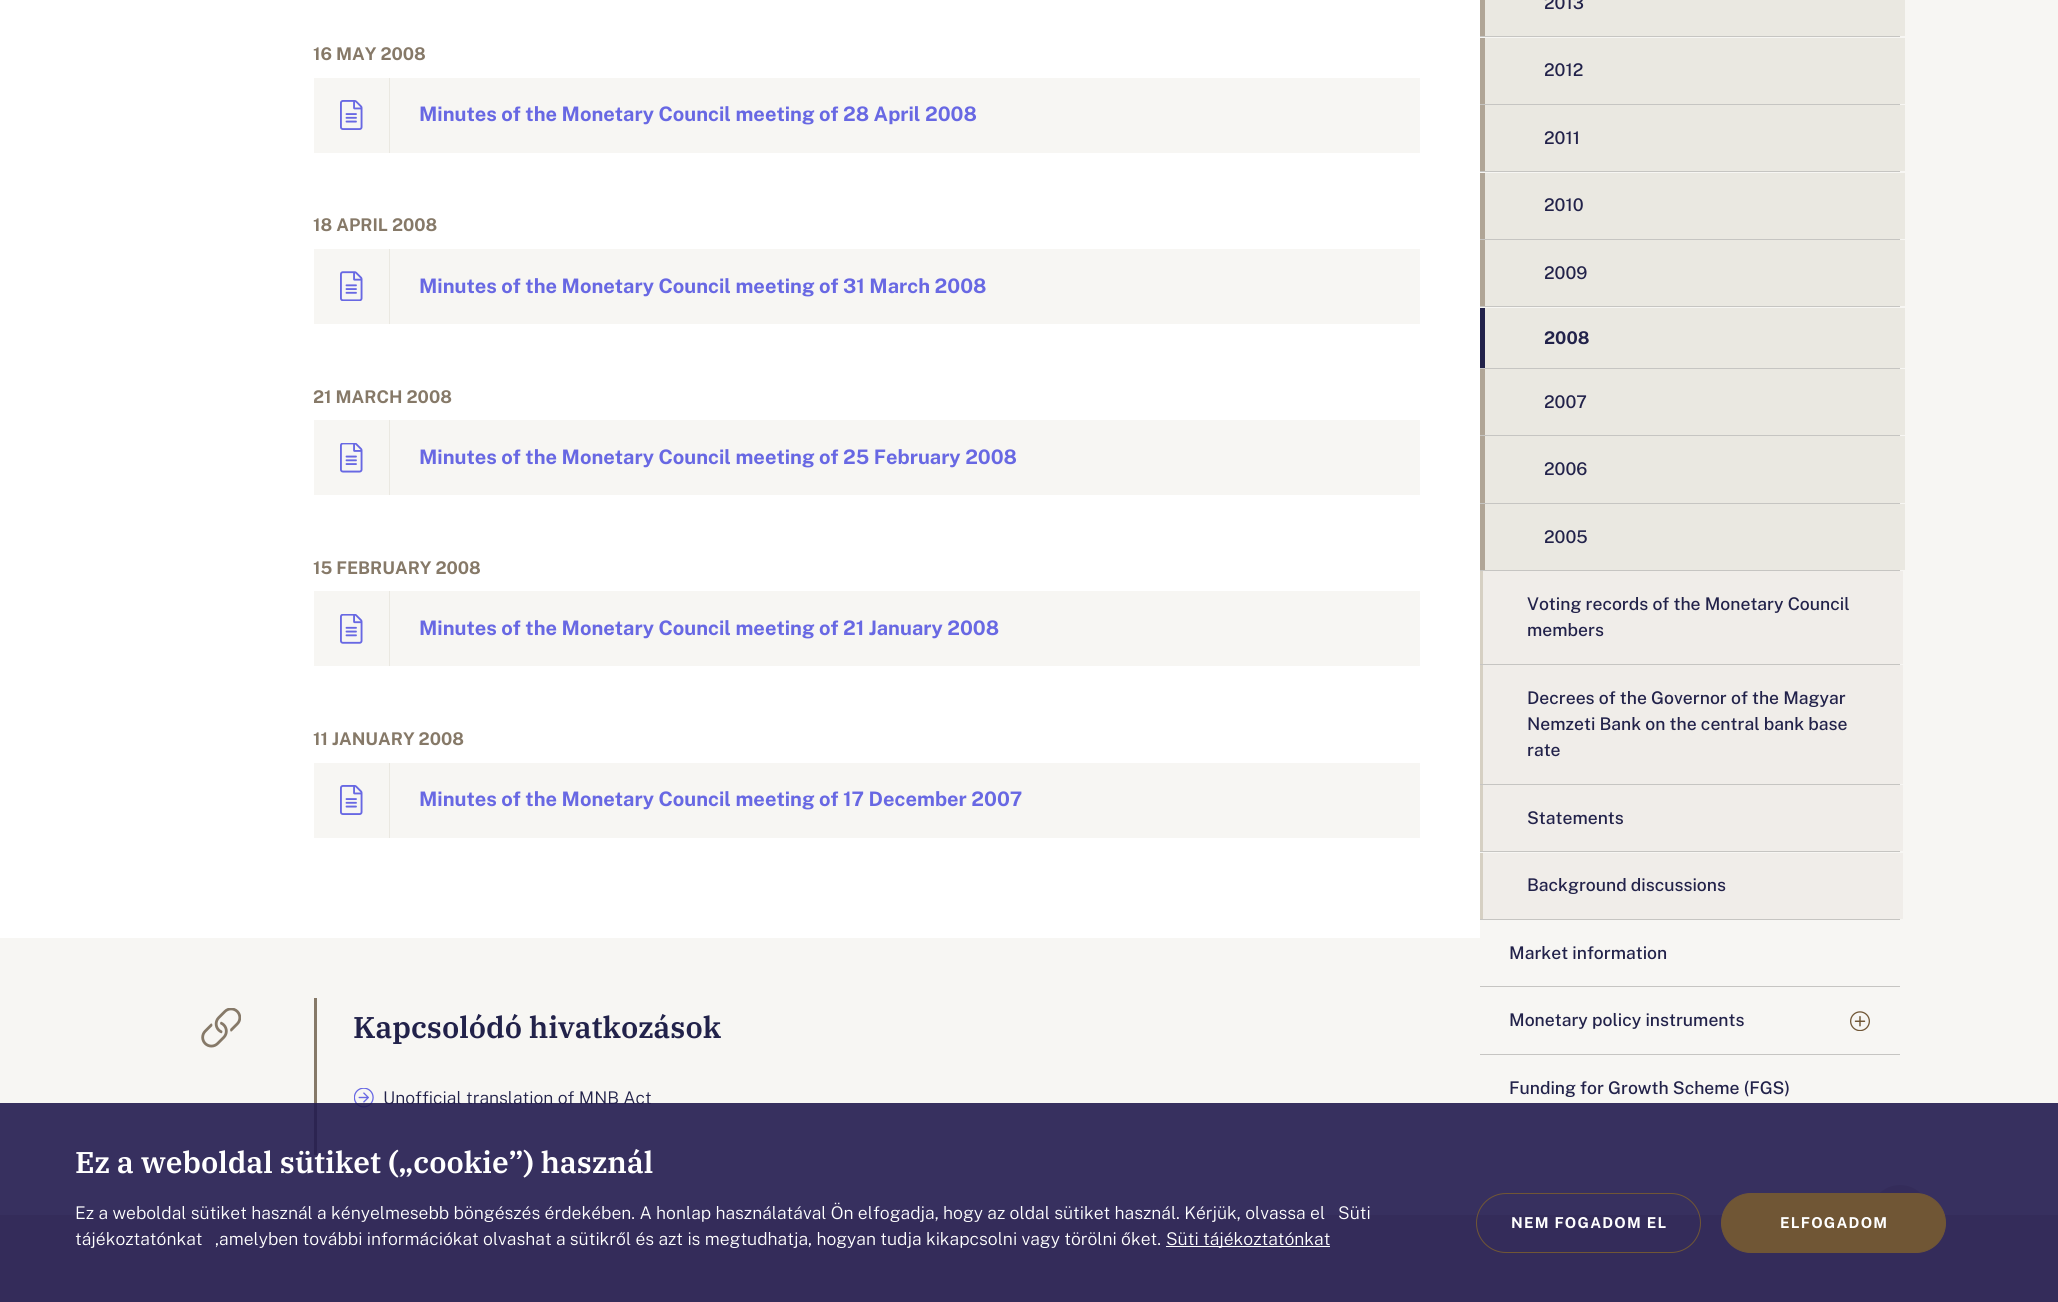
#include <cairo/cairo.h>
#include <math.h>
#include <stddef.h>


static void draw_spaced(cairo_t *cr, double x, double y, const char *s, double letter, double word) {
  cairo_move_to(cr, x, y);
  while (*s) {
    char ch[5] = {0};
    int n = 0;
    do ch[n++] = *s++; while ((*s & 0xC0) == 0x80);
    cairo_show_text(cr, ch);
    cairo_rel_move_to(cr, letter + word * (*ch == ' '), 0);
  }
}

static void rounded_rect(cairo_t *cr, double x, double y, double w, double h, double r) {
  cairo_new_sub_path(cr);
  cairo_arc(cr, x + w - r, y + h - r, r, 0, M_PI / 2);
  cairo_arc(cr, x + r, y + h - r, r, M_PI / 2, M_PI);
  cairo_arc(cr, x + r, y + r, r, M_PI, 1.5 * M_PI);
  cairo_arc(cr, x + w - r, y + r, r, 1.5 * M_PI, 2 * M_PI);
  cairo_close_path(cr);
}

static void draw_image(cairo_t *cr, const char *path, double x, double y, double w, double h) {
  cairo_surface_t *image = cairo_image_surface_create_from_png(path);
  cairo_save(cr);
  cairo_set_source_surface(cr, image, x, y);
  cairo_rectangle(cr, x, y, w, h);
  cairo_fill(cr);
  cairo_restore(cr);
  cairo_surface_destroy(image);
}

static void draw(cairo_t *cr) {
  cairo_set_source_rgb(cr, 1, 1, 1);
  cairo_paint(cr);
  cairo_set_source_rgb(cr, 247 / 255.0, 246 / 255.0, 243 / 255.0);
  cairo_rectangle(cr, 314, 78, 1106, 75);
  cairo_fill(cr);
  cairo_set_source_rgb(cr, 234 / 255.0, 232 / 255.0, 225 / 255.0);
  cairo_rectangle(cr, 389, 78, 1, 75);
  cairo_fill(cr);
  draw_image(cr, "images/1.png", 340, 100, 23, 30);
  cairo_set_source_rgb(cr, 247 / 255.0, 246 / 255.0, 243 / 255.0);
  cairo_rectangle(cr, 314, 249, 1106, 75);
  cairo_fill(cr);
  cairo_set_source_rgb(cr, 234 / 255.0, 232 / 255.0, 225 / 255.0);
  cairo_rectangle(cr, 389, 249, 1, 75);
  cairo_fill(cr);
  draw_image(cr, "images/2.png", 340, 271, 23, 30);
  cairo_set_source_rgb(cr, 247 / 255.0, 246 / 255.0, 243 / 255.0);
  cairo_rectangle(cr, 314, 420, 1106, 75);
  cairo_fill(cr);
  cairo_set_source_rgb(cr, 234 / 255.0, 232 / 255.0, 225 / 255.0);
  cairo_rectangle(cr, 389, 420, 1, 75);
  cairo_fill(cr);
  draw_image(cr, "images/3.png", 340, 443, 23, 30);
  cairo_set_source_rgb(cr, 247 / 255.0, 246 / 255.0, 243 / 255.0);
  cairo_rectangle(cr, 314, 591, 1106, 75);
  cairo_fill(cr);
  cairo_set_source_rgb(cr, 234 / 255.0, 232 / 255.0, 225 / 255.0);
  cairo_rectangle(cr, 389, 591, 1, 75);
  cairo_fill(cr);
  draw_image(cr, "images/4.png", 340, 614, 23, 30);
  cairo_set_source_rgb(cr, 247 / 255.0, 246 / 255.0, 243 / 255.0);
  cairo_rectangle(cr, 314, 763, 1106, 75);
  cairo_fill(cr);
  cairo_set_source_rgb(cr, 234 / 255.0, 232 / 255.0, 225 / 255.0);
  cairo_rectangle(cr, 389, 763, 1, 75);
  cairo_fill(cr);
  draw_image(cr, "images/1.png", 340, 785, 23, 30);
  cairo_set_source_rgb(cr, 247 / 255.0, 246 / 255.0, 243 / 255.0);
  cairo_rectangle(cr, 0, 938, 1480, 277);
  cairo_fill(cr);
  draw_image(cr, "images/5.png", 201, 1008, 40, 40);
  cairo_set_source_rgb(cr, 134 / 255.0, 121 / 255.0, 104 / 255.0);
  cairo_rectangle(cr, 314, 998, 3, 157);
  cairo_fill(cr);
  draw_image(cr, "images/6.png", 354, 1088, 20, 20);
  cairo_set_source_rgb(cr, 247 / 255.0, 246 / 255.0, 243 / 255.0);
  cairo_rectangle(cr, 1480, 0, 578, 1215);
  cairo_fill(cr);
  cairo_set_source_rgb(cr, 234 / 255.0, 232 / 255.0, 225 / 255.0);
  cairo_rectangle(cr, 1485, 0, 420, 36);
  cairo_fill(cr);
  cairo_set_source_rgb(cr, 176 / 255.0, 165 / 255.0, 150 / 255.0);
  cairo_rectangle(cr, 1480, 0, 5, 36);
  cairo_fill(cr);
  cairo_set_source_rgb(cr, 198 / 255.0, 197 / 255.0, 194 / 255.0);
  cairo_rectangle(cr, 1480, 36, 420, 1);
  cairo_fill(cr);
  cairo_set_source_rgb(cr, 234 / 255.0, 232 / 255.0, 225 / 255.0);
  cairo_rectangle(cr, 1485, 38, 420, 66);
  cairo_fill(cr);
  cairo_set_source_rgb(cr, 176 / 255.0, 165 / 255.0, 150 / 255.0);
  cairo_rectangle(cr, 1480, 38, 5, 66);
  cairo_fill(cr);
  cairo_set_source_rgb(cr, 198 / 255.0, 197 / 255.0, 194 / 255.0);
  cairo_rectangle(cr, 1480, 104, 420, 1);
  cairo_fill(cr);
  cairo_set_source_rgb(cr, 234 / 255.0, 232 / 255.0, 225 / 255.0);
  cairo_rectangle(cr, 1485, 105, 420, 66);
  cairo_fill(cr);
  cairo_set_source_rgb(cr, 176 / 255.0, 165 / 255.0, 150 / 255.0);
  cairo_rectangle(cr, 1480, 105, 5, 66);
  cairo_fill(cr);
  cairo_set_source_rgb(cr, 198 / 255.0, 197 / 255.0, 194 / 255.0);
  cairo_rectangle(cr, 1480, 171, 420, 1);
  cairo_fill(cr);
  cairo_set_source_rgb(cr, 234 / 255.0, 232 / 255.0, 225 / 255.0);
  cairo_rectangle(cr, 1485, 173, 420, 66);
  cairo_fill(cr);
  cairo_set_source_rgb(cr, 176 / 255.0, 165 / 255.0, 150 / 255.0);
  cairo_rectangle(cr, 1480, 173, 5, 66);
  cairo_fill(cr);
  cairo_set_source_rgb(cr, 198 / 255.0, 197 / 255.0, 194 / 255.0);
  cairo_rectangle(cr, 1480, 239, 420, 1);
  cairo_fill(cr);
  cairo_set_source_rgb(cr, 234 / 255.0, 232 / 255.0, 225 / 255.0);
  cairo_rectangle(cr, 1485, 240, 420, 66);
  cairo_fill(cr);
  cairo_set_source_rgb(cr, 176 / 255.0, 165 / 255.0, 150 / 255.0);
  cairo_rectangle(cr, 1480, 240, 5, 66);
  cairo_fill(cr);
  cairo_set_source_rgb(cr, 198 / 255.0, 197 / 255.0, 194 / 255.0);
  cairo_rectangle(cr, 1480, 306, 420, 1);
  cairo_fill(cr);
  cairo_set_source_rgb(cr, 234 / 255.0, 232 / 255.0, 225 / 255.0);
  cairo_rectangle(cr, 1485, 308, 420, 60);
  cairo_fill(cr);
  cairo_set_source_rgb(cr, 34 / 255.0, 34 / 255.0, 74 / 255.0);
  cairo_rectangle(cr, 1480, 308, 5, 60);
  cairo_fill(cr);
  cairo_set_source_rgb(cr, 198 / 255.0, 197 / 255.0, 194 / 255.0);
  cairo_rectangle(cr, 1480, 368, 420, 1);
  cairo_fill(cr);
  cairo_set_source_rgb(cr, 234 / 255.0, 232 / 255.0, 225 / 255.0);
  cairo_rectangle(cr, 1485, 369, 420, 66);
  cairo_fill(cr);
  cairo_set_source_rgb(cr, 176 / 255.0, 165 / 255.0, 150 / 255.0);
  cairo_rectangle(cr, 1480, 369, 5, 66);
  cairo_fill(cr);
  cairo_set_source_rgb(cr, 198 / 255.0, 197 / 255.0, 194 / 255.0);
  cairo_rectangle(cr, 1480, 435, 420, 1);
  cairo_fill(cr);
  cairo_set_source_rgb(cr, 234 / 255.0, 232 / 255.0, 225 / 255.0);
  cairo_rectangle(cr, 1485, 436, 420, 67);
  cairo_fill(cr);
  cairo_set_source_rgb(cr, 176 / 255.0, 165 / 255.0, 150 / 255.0);
  cairo_rectangle(cr, 1480, 436, 5, 67);
  cairo_fill(cr);
  cairo_set_source_rgb(cr, 198 / 255.0, 197 / 255.0, 194 / 255.0);
  cairo_rectangle(cr, 1480, 503, 420, 1);
  cairo_fill(cr);
  cairo_set_source_rgb(cr, 234 / 255.0, 232 / 255.0, 225 / 255.0);
  cairo_rectangle(cr, 1485, 504, 420, 66);
  cairo_fill(cr);
  cairo_set_source_rgb(cr, 176 / 255.0, 165 / 255.0, 150 / 255.0);
  cairo_rectangle(cr, 1480, 504, 5, 66);
  cairo_fill(cr);
  cairo_set_source_rgb(cr, 198 / 255.0, 197 / 255.0, 194 / 255.0);
  cairo_rectangle(cr, 1480, 570, 420, 1);
  cairo_fill(cr);
  cairo_set_source_rgb(cr, 240 / 255.0, 237 / 255.0, 233 / 255.0);
  cairo_rectangle(cr, 1483, 571, 420, 93);
  cairo_fill(cr);
  cairo_set_source_rgb(cr, 214 / 255.0, 208 / 255.0, 195 / 255.0);
  cairo_rectangle(cr, 1480, 571, 3, 93);
  cairo_fill(cr);
  cairo_set_source_rgb(cr, 198 / 255.0, 197 / 255.0, 194 / 255.0);
  cairo_rectangle(cr, 1480, 664, 420, 1);
  cairo_fill(cr);
  cairo_set_source_rgb(cr, 240 / 255.0, 237 / 255.0, 233 / 255.0);
  cairo_rectangle(cr, 1483, 665, 420, 119);
  cairo_fill(cr);
  cairo_set_source_rgb(cr, 214 / 255.0, 208 / 255.0, 195 / 255.0);
  cairo_rectangle(cr, 1480, 665, 3, 119);
  cairo_fill(cr);
  cairo_set_source_rgb(cr, 198 / 255.0, 197 / 255.0, 194 / 255.0);
  cairo_rectangle(cr, 1480, 784, 420, 1);
  cairo_fill(cr);
  cairo_set_source_rgb(cr, 240 / 255.0, 237 / 255.0, 233 / 255.0);
  cairo_rectangle(cr, 1483, 785, 420, 66);
  cairo_fill(cr);
  cairo_set_source_rgb(cr, 214 / 255.0, 208 / 255.0, 195 / 255.0);
  cairo_rectangle(cr, 1480, 785, 3, 66);
  cairo_fill(cr);
  cairo_set_source_rgb(cr, 198 / 255.0, 197 / 255.0, 194 / 255.0);
  cairo_rectangle(cr, 1480, 851, 420, 1);
  cairo_fill(cr);
  cairo_set_source_rgb(cr, 240 / 255.0, 237 / 255.0, 233 / 255.0);
  cairo_rectangle(cr, 1483, 853, 420, 66);
  cairo_fill(cr);
  cairo_set_source_rgb(cr, 214 / 255.0, 208 / 255.0, 195 / 255.0);
  cairo_rectangle(cr, 1480, 853, 3, 66);
  cairo_fill(cr);
  cairo_set_source_rgb(cr, 198 / 255.0, 197 / 255.0, 194 / 255.0);
  cairo_rectangle(cr, 1480, 919, 420, 1);
  cairo_fill(cr);
  cairo_rectangle(cr, 1480, 986, 420, 1);
  cairo_fill(cr);
  draw_image(cr, "images/7.png", 1850, 1011, 20, 20);
  cairo_rectangle(cr, 1480, 1054, 420, 1);
  cairo_fill(cr);
  cairo_set_source_rgb(cr, 214 / 255.0, 208 / 255.0, 195 / 255.0);
  cairo_rectangle(cr, 0, 1215, 2058, 87);
  cairo_fill(cr);
  cairo_arc(cr, 1900, 1215, 30, 0, 2 * M_PI);
  cairo_fill(cr);
  cairo_select_font_face(cr, "Public Sans", CAIRO_FONT_SLANT_NORMAL, CAIRO_FONT_WEIGHT_BOLD);
  cairo_set_font_size(cr, 17.5);
  cairo_set_source_rgb(cr, 134 / 255.0, 121 / 255.0, 104 / 255.0);
  cairo_move_to(cr, 313, 60);
  cairo_show_text(cr, "16 MAY 2008");
  cairo_set_font_size(cr, 20);
  cairo_set_source_rgb(cr, 104 / 255.0, 104 / 255.0, 227 / 255.0);
  cairo_move_to(cr, 419, 121);
  cairo_show_text(cr, "Minutes of the Monetary Council meeting of 28 April 2008");
  cairo_set_font_size(cr, 17.5);
  cairo_set_source_rgb(cr, 134 / 255.0, 121 / 255.0, 104 / 255.0);
  cairo_move_to(cr, 313, 231);
  cairo_show_text(cr, "18 APRIL 2008");
  cairo_set_font_size(cr, 20);
  cairo_set_source_rgb(cr, 104 / 255.0, 104 / 255.0, 227 / 255.0);
  cairo_move_to(cr, 419, 293);
  cairo_show_text(cr, "Minutes of the Monetary Council meeting of 31 March 2008");
  cairo_set_font_size(cr, 17.5);
  cairo_set_source_rgb(cr, 134 / 255.0, 121 / 255.0, 104 / 255.0);
  cairo_move_to(cr, 313, 403);
  cairo_show_text(cr, "21 MARCH 2008");
  cairo_set_font_size(cr, 20);
  cairo_set_source_rgb(cr, 104 / 255.0, 104 / 255.0, 227 / 255.0);
  cairo_move_to(cr, 419, 464);
  cairo_show_text(cr, "Minutes of the Monetary Council meeting of 25 February 2008");
  cairo_set_font_size(cr, 17.5);
  cairo_set_source_rgb(cr, 134 / 255.0, 121 / 255.0, 104 / 255.0);
  cairo_move_to(cr, 313, 574);
  cairo_show_text(cr, "15 FEBRUARY 2008");
  cairo_set_font_size(cr, 20);
  cairo_set_source_rgb(cr, 104 / 255.0, 104 / 255.0, 227 / 255.0);
  cairo_move_to(cr, 419, 635);
  cairo_show_text(cr, "Minutes of the Monetary Council meeting of 21 January 2008");
  cairo_set_font_size(cr, 17.5);
  cairo_set_source_rgb(cr, 134 / 255.0, 121 / 255.0, 104 / 255.0);
  cairo_move_to(cr, 313, 745);
  cairo_show_text(cr, "11 JANUARY 2008");
  cairo_set_font_size(cr, 20);
  cairo_set_source_rgb(cr, 104 / 255.0, 104 / 255.0, 227 / 255.0);
  cairo_move_to(cr, 419, 806);
  cairo_show_text(cr, "Minutes of the Monetary Council meeting of 17 December 2007");
  cairo_select_font_face(cr, "IBM Plex Serif SemiBold", CAIRO_FONT_SLANT_NORMAL, CAIRO_FONT_WEIGHT_NORMAL);
  cairo_set_font_size(cr, 30);
  cairo_set_source_rgb(cr, 34 / 255.0, 34 / 255.0, 74 / 255.0);
  cairo_move_to(cr, 353, 1038);
  cairo_show_text(cr, "Kapcsolódó hivatkozások");
  cairo_select_font_face(cr, "Public Sans Light", CAIRO_FONT_SLANT_NORMAL, CAIRO_FONT_WEIGHT_NORMAL);
  cairo_set_font_size(cr, 17.5);
  cairo_move_to(cr, 383, 1104);
  cairo_show_text(cr, "Unofficial translation of MNB Act");
  cairo_select_font_face(cr, "Public Sans Medium", CAIRO_FONT_SLANT_NORMAL, CAIRO_FONT_WEIGHT_NORMAL);
  cairo_move_to(cr, 1544, 9);
  cairo_show_text(cr, "2013");
  cairo_move_to(cr, 1544, 76);
  cairo_show_text(cr, "2012");
  cairo_move_to(cr, 1544, 144);
  cairo_show_text(cr, "2011");
  cairo_move_to(cr, 1544, 211);
  cairo_show_text(cr, "2010");
  cairo_move_to(cr, 1544, 279);
  cairo_show_text(cr, "2009");
  cairo_select_font_face(cr, "Public Sans", CAIRO_FONT_SLANT_NORMAL, CAIRO_FONT_WEIGHT_BOLD);
  cairo_move_to(cr, 1544, 344);
  cairo_show_text(cr, "2008");
  cairo_select_font_face(cr, "Public Sans Medium", CAIRO_FONT_SLANT_NORMAL, CAIRO_FONT_WEIGHT_NORMAL);
  cairo_move_to(cr, 1544, 408);
  cairo_show_text(cr, "2007");
  cairo_move_to(cr, 1544, 475);
  cairo_show_text(cr, "2006");
  cairo_move_to(cr, 1544, 543);
  cairo_show_text(cr, "2005");
  cairo_move_to(cr, 1527, 610);
  cairo_show_text(cr, "Voting records of the Monetary Council");
  cairo_move_to(cr, 1527, 636);
  cairo_show_text(cr, "members");
  cairo_move_to(cr, 1527, 704);
  cairo_show_text(cr, "Decrees of the Governor of the Magyar");
  cairo_move_to(cr, 1527, 730);
  cairo_show_text(cr, "Nemzeti Bank on the central bank base");
  cairo_move_to(cr, 1527, 756);
  cairo_show_text(cr, "rate");
  cairo_move_to(cr, 1527, 824);
  cairo_show_text(cr, "Statements");
  cairo_move_to(cr, 1527, 891);
  cairo_show_text(cr, "Background discussions");
  cairo_move_to(cr, 1509, 959);
  cairo_show_text(cr, "Market information");
  cairo_move_to(cr, 1509, 1026);
  cairo_show_text(cr, "Monetary policy instruments");
  cairo_move_to(cr, 1509, 1094);
  cairo_show_text(cr, "Funding for Growth Scheme (FGS)");
  cairo_set_source_rgba(cr, 35 / 255.0, 27 / 255.0, 79 / 255.0, 0.9);
  cairo_rectangle(cr, 0, 1103, 2058, 199);
  cairo_fill(cr);
  cairo_select_font_face(cr, "IBM Plex Serif SemiBold", CAIRO_FONT_SLANT_NORMAL, CAIRO_FONT_WEIGHT_NORMAL);
  cairo_set_font_size(cr, 30);
  cairo_set_source_rgb(cr, 1, 1, 1);
  cairo_move_to(cr, 75, 1173);
  cairo_show_text(cr, "Ez a weboldal sütiket („cookie”) használ");
  cairo_select_font_face(cr, "Public Sans Light", CAIRO_FONT_SLANT_NORMAL, CAIRO_FONT_WEIGHT_NORMAL);
  cairo_set_font_size(cr, 17.5);
  cairo_move_to(cr, 75, 1219);
  cairo_show_text(cr, "Ez a weboldal sütiket használ a kényelmesebb böngészés érdekében. A honlap használatával Ön elfogadja, hogy az oldal sütiket használ. Kérjük, olvassa el   Süti");
  cairo_move_to(cr, 75, 1245);
  cairo_show_text(cr, "tájékoztatónkat");
  cairo_move_to(cr, 215, 1245);
  cairo_show_text(cr, ",amelyben további információkat olvashat a sütikről és azt is megtudhatja, hogyan tudja kikapcsolni vagy törölni őket.");
  cairo_rectangle(cr, 1166, 1246, 164, 1);
  cairo_fill(cr);
  cairo_move_to(cr, 1166, 1245);
  cairo_show_text(cr, "Süti tájékoztatónkat");
  rounded_rect(cr, 1476.5, 1193.5, 224, 59, 29.5);
  cairo_set_source_rgb(cr, 112 / 255.0, 86 / 255.0, 53 / 255.0);
  cairo_set_line_width(cr, 1);
  cairo_stroke(cr);
  cairo_select_font_face(cr, "Public Sans", CAIRO_FONT_SLANT_NORMAL, CAIRO_FONT_WEIGHT_BOLD);
  cairo_set_font_size(cr, 15);
  cairo_set_source_rgb(cr, 1, 1, 1);
  draw_spaced(cr, 1511, 1228, "NEM FOGADOM EL", 1.25, 0);
  cairo_set_source_rgb(cr, 112 / 255.0, 86 / 255.0, 53 / 255.0);
  rounded_rect(cr, 1721.5, 1193.5, 224, 59, 29.5);
  cairo_fill_preserve(cr);
  cairo_stroke(cr);
  cairo_set_source_rgb(cr, 1, 1, 1);
  draw_spaced(cr, 1780, 1228, "ELFOGADOM", 1.25, 0);
}

int main(void) {
  cairo_surface_t *surface = cairo_image_surface_create(CAIRO_FORMAT_RGB24, 2058, 1302);
  cairo_t *cr = cairo_create(surface);
  cairo_font_options_t *options = cairo_font_options_create();
  cairo_font_options_set_hint_metrics(options, CAIRO_HINT_METRICS_OFF);
  cairo_font_options_set_hint_style(options, CAIRO_HINT_STYLE_NONE);
  cairo_set_font_options(cr, options);
  cairo_set_miter_limit(cr, 4);
  draw(cr);
  cairo_surface_write_to_png(surface, "out.png");
  cairo_font_options_destroy(options);
  cairo_destroy(cr);
  cairo_surface_destroy(surface);
  return 0;
}
